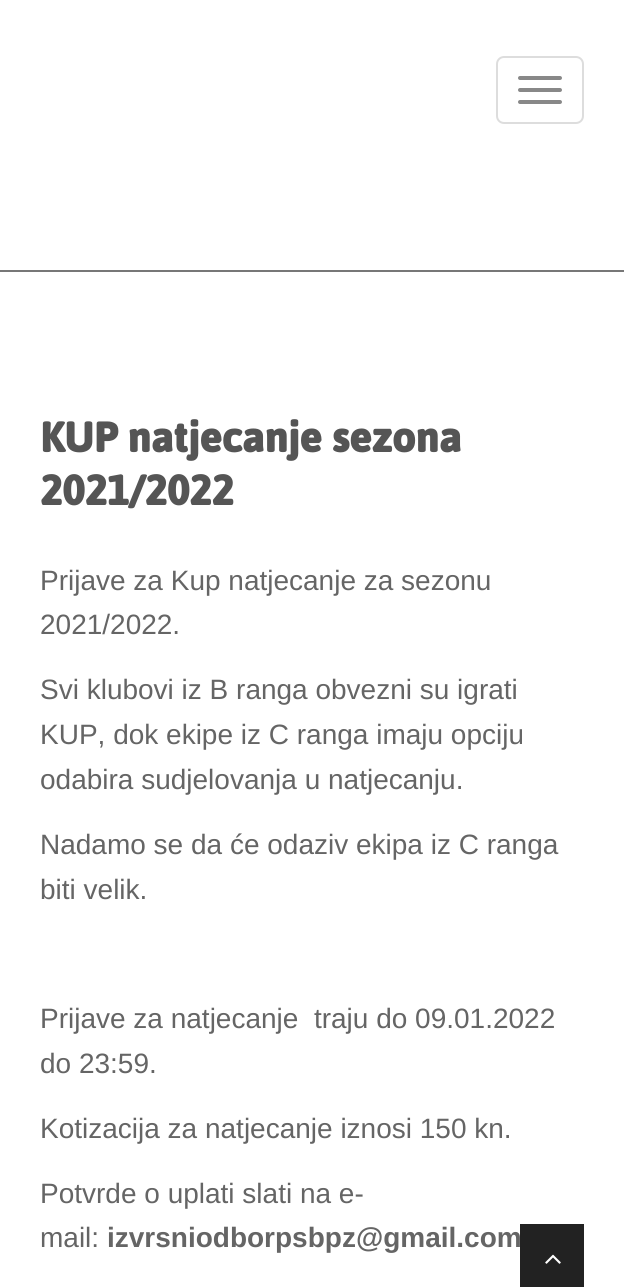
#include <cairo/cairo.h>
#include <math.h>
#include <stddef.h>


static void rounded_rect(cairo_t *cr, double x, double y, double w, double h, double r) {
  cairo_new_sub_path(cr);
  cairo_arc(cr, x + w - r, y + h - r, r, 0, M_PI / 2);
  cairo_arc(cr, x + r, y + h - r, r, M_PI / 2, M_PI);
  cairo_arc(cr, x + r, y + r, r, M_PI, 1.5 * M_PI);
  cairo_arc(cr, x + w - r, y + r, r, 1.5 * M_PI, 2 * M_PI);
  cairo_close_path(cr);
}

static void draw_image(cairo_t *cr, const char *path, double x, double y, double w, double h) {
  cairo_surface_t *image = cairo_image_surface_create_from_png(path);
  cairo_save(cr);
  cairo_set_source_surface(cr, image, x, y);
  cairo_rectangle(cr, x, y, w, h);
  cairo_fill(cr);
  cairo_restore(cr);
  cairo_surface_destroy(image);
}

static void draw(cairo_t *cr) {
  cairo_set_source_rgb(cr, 1, 1, 1);
  cairo_paint(cr);
  cairo_set_source_rgb(cr, 119 / 255.0, 119 / 255.0, 119 / 255.0);
  cairo_rectangle(cr, 0, 270, 624, 2);
  cairo_fill(cr);
  rounded_rect(cr, 497, 57, 86, 66, 7);
  cairo_set_source_rgb(cr, 221 / 255.0, 221 / 255.0, 221 / 255.0);
  cairo_stroke(cr);
  cairo_set_source_rgb(cr, 136 / 255.0, 136 / 255.0, 136 / 255.0);
  rounded_rect(cr, 518, 76, 44, 4, 2);
  cairo_fill(cr);
  rounded_rect(cr, 518, 88, 44, 4, 2);
  cairo_fill(cr);
  rounded_rect(cr, 518, 100, 44, 4, 2);
  cairo_fill(cr);
  cairo_set_source_rgb(cr, 34 / 255.0, 34 / 255.0, 34 / 255.0);
  cairo_rectangle(cr, 520, 1224, 64, 63);
  cairo_fill(cr);
  draw_image(cr, "images/1.png", 545, 1254, 16, 10);
  cairo_select_font_face(cr, "Jaldi", CAIRO_FONT_SLANT_NORMAL, CAIRO_FONT_WEIGHT_BOLD);
  cairo_set_font_size(cr, 48);
  cairo_set_source_rgb(cr, 85 / 255.0, 85 / 255.0, 85 / 255.0);
  cairo_move_to(cr, 40, 452);
  cairo_show_text(cr, "KUP natjecanje sezona");
  cairo_move_to(cr, 40, 505);
  cairo_show_text(cr, "2021/2022");
  cairo_select_font_face(cr, "Liberation Sans", CAIRO_FONT_SLANT_NORMAL, CAIRO_FONT_WEIGHT_NORMAL);
  cairo_set_font_size(cr, 28);
  cairo_set_source_rgb(cr, 101 / 255.0, 101 / 255.0, 101 / 255.0);
  cairo_move_to(cr, 40, 590);
  cairo_show_text(cr, "Prijave za Kup natjecanje za sezonu");
  cairo_move_to(cr, 40, 634);
  cairo_show_text(cr, "2021/2022.");
  cairo_move_to(cr, 40, 699);
  cairo_show_text(cr, "Svi klubovi iz B ranga obvezni su igrati");
  cairo_move_to(cr, 40, 744);
  cairo_show_text(cr, "KUP, dok ekipe iz C ranga imaju opciju");
  cairo_move_to(cr, 40, 789);
  cairo_show_text(cr, "odabira sudjelovanja u natjecanju.");
  cairo_move_to(cr, 40, 854);
  cairo_show_text(cr, "Nadamo se da će odaziv ekipa iz C ranga");
  cairo_move_to(cr, 40, 899);
  cairo_show_text(cr, "biti velik.");
  cairo_move_to(cr, 40, 1028);
  cairo_show_text(cr, "Prijave za natjecanje  traju do 09.01.2022");
  cairo_move_to(cr, 40, 1073);
  cairo_show_text(cr, "do 23:59.");
  cairo_move_to(cr, 40, 1138);
  cairo_show_text(cr, "Kotizacija za natjecanje iznosi 150 kn.");
  cairo_move_to(cr, 40, 1203);
  cairo_show_text(cr, "Potvrde o uplati slati na e-");
  cairo_move_to(cr, 40, 1247);
  cairo_show_text(cr, "mail:");
  cairo_select_font_face(cr, "Liberation Sans", CAIRO_FONT_SLANT_NORMAL, CAIRO_FONT_WEIGHT_BOLD);
  cairo_move_to(cr, 107, 1247);
  cairo_show_text(cr, "izvrsniodborpsbpz@gmail.com");
}

int main(void) {
  cairo_surface_t *surface = cairo_image_surface_create(CAIRO_FORMAT_RGB24, 624, 1287);
  cairo_t *cr = cairo_create(surface);
  cairo_font_options_t *options = cairo_font_options_create();
  cairo_font_options_set_hint_metrics(options, CAIRO_HINT_METRICS_OFF);
  cairo_font_options_set_hint_style(options, CAIRO_HINT_STYLE_NONE);
  cairo_set_font_options(cr, options);
  cairo_set_miter_limit(cr, 4);
  draw(cr);
  cairo_surface_write_to_png(surface, "out.png");
  cairo_font_options_destroy(options);
  cairo_destroy(cr);
  cairo_surface_destroy(surface);
  return 0;
}
